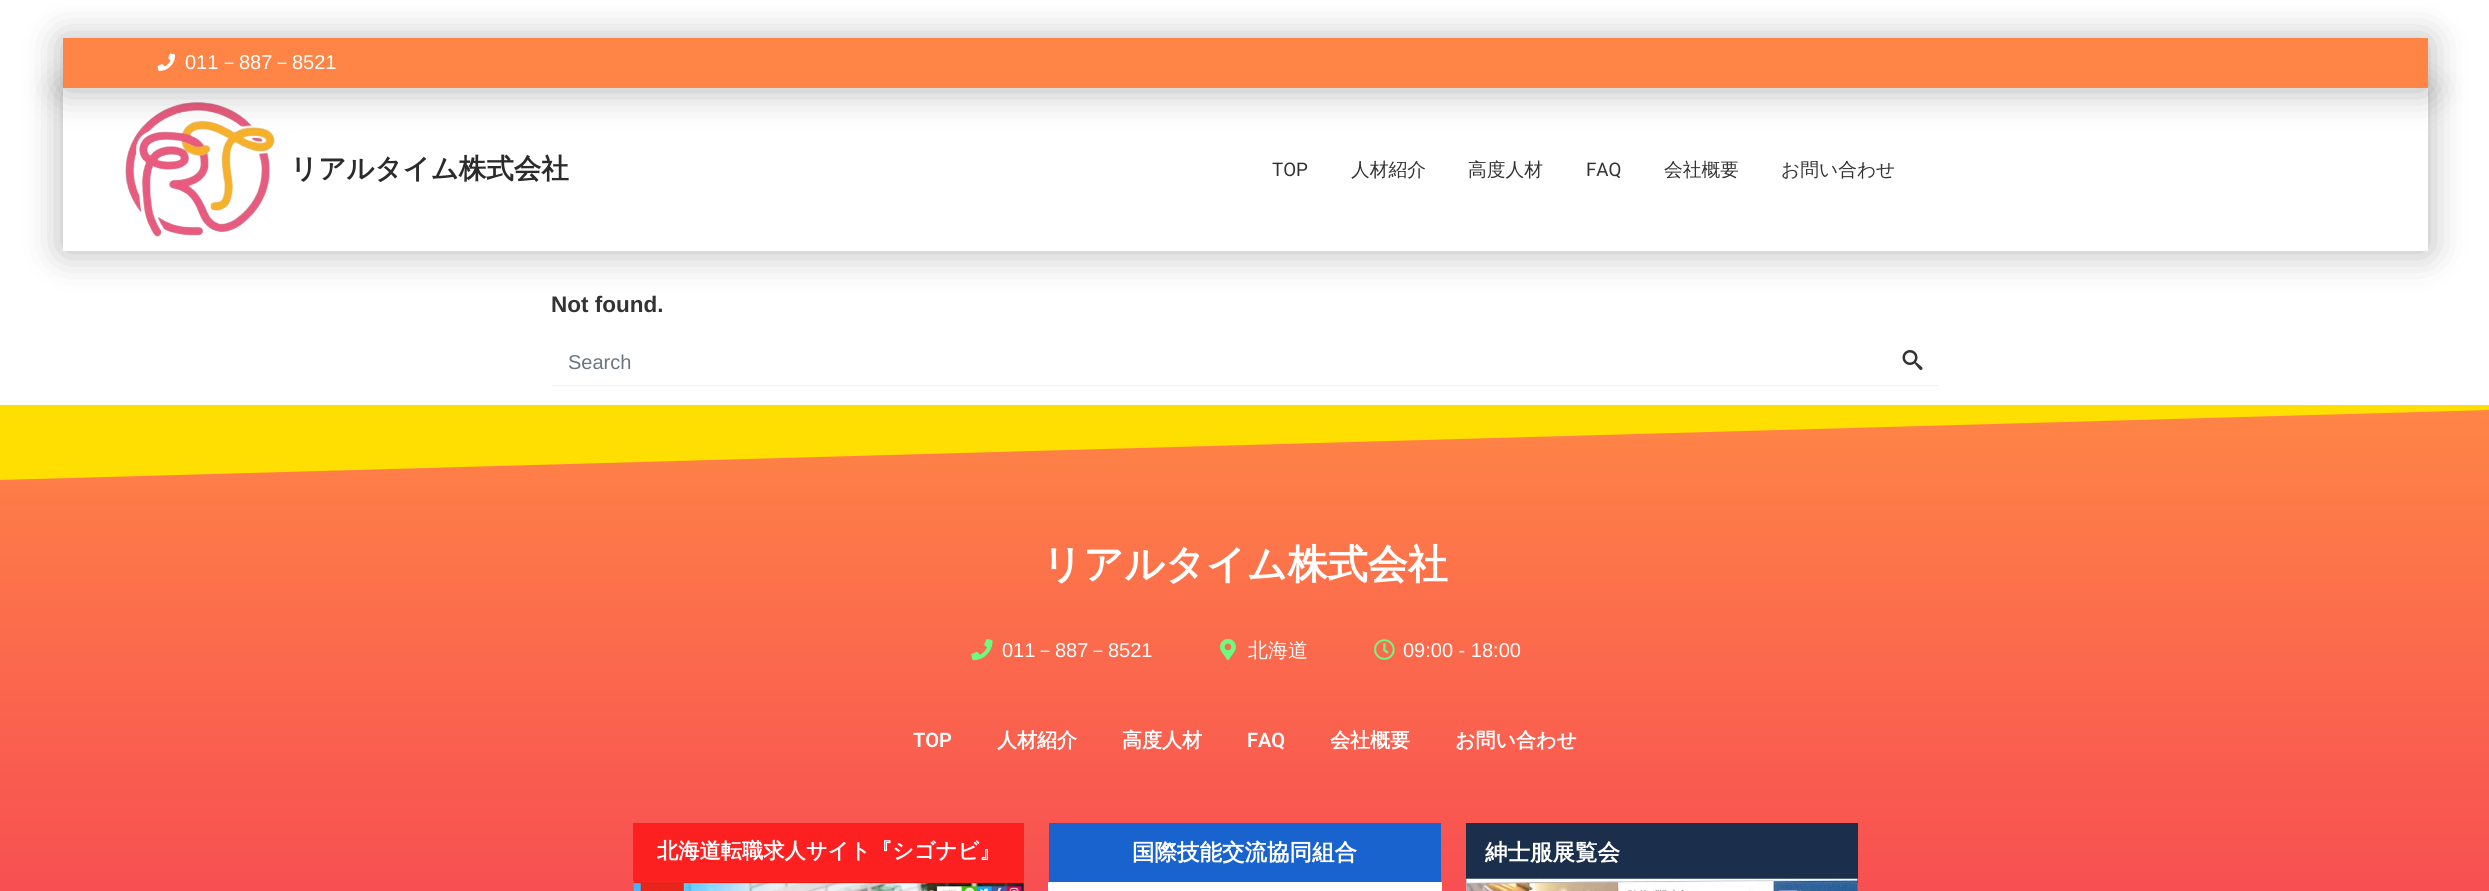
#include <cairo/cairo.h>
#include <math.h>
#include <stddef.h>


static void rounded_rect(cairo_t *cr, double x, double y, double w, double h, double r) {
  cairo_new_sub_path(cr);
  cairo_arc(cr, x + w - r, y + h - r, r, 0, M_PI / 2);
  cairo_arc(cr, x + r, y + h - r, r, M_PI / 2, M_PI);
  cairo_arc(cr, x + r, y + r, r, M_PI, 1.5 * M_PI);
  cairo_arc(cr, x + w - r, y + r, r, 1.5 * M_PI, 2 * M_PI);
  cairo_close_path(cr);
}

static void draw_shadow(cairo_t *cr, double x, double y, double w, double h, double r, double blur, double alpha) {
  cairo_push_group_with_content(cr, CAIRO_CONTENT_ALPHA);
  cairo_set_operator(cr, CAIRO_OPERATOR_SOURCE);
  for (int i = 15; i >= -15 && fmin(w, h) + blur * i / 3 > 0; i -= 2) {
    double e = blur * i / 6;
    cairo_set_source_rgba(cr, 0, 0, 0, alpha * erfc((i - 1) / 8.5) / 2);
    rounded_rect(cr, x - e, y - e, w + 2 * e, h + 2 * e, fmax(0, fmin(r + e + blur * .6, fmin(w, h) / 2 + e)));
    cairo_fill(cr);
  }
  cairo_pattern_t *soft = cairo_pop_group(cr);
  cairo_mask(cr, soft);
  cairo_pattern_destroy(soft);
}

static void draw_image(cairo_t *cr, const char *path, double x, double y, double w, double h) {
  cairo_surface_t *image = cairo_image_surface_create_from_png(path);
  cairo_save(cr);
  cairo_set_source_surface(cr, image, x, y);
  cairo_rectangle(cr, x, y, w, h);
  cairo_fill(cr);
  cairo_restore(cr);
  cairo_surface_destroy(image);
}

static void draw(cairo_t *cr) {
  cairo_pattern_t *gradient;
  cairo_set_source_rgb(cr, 1, 1, 1);
  cairo_paint(cr);
  cairo_set_source_rgb(cr, 0, 0, 0);
  draw_shadow(cr, 63, 88, 2365, 163, 0, 19, 0.3);
  cairo_set_source_rgb(cr, 1, 1, 1);
  cairo_rectangle(cr, 63, 88, 2365, 163);
  cairo_fill(cr);
  draw_image(cr, "images/2.png", 125, 102, 150, 135);
  cairo_set_source_rgb(cr, 0, 0, 0);
  draw_shadow(cr, 63, 40, 2365, 50, 0, 19, 0.3);
  cairo_set_source_rgb(cr, 1, 133 / 255.0, 70 / 255.0);
  cairo_rectangle(cr, 63, 38, 2365, 50);
  cairo_fill(cr);
  draw_image(cr, "images/1.png", 157, 53, 18, 18);
  cairo_set_source_rgb(cr, 241 / 255.0, 241 / 255.0, 241 / 255.0);
  cairo_new_path(cr);
  cairo_move_to(cr, 1939, 386);
  cairo_line_to(cr, 551, 386);
  cairo_line_to(cr, 552, 385);
  cairo_line_to(cr, 1938, 385);
  cairo_close_path(cr);
  cairo_fill(cr);
  draw_image(cr, "images/3.png", 1902, 350, 21, 20);
  gradient = cairo_pattern_create_linear(1245, 406, 1245, 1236);
  cairo_pattern_add_color_stop_rgba(gradient, 0, 1, 133 / 255.0, 70 / 255.0, 1);
  cairo_pattern_add_color_stop_rgba(gradient, 1, 242 / 255.0, 41 / 255.0, 91 / 255.0, 1);
  cairo_set_source(cr, gradient);
  cairo_pattern_destroy(gradient);
  cairo_rectangle(cr, 0, 410, 2489, 481);
  cairo_fill(cr);
  cairo_set_source_rgb(cr, 1, 222 / 255.0, 1 / 255.0);
  cairo_new_path(cr);
  cairo_move_to(cr, 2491, 410);
  cairo_line_to(cr, 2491, 405);
  cairo_line_to(cr, -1, 405);
  cairo_line_to(cr, -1, 480);
  cairo_close_path(cr);
  cairo_fill(cr);
  draw_image(cr, "images/4.png", 971, 638, 22, 23);
  draw_image(cr, "images/5.png", 1220, 638, 16, 23);
  draw_image(cr, "images/6.png", 1374, 639, 21, 21);
  cairo_set_source_rgb(cr, 252 / 255.0, 32 / 255.0, 32 / 255.0);
  cairo_rectangle(cr, 633, 823, 391, 58);
  cairo_fill(cr);
  draw_image(cr, "images/7.png", 633, 881, 391, 10);
  cairo_set_source_rgb(cr, 25 / 255.0, 99 / 255.0, 207 / 255.0);
  cairo_rectangle(cr, 1049, 823, 392, 59);
  cairo_fill(cr);
  cairo_set_source_rgb(cr, 1, 1, 1);
  cairo_rectangle(cr, 1048, 882, 394, 9);
  cairo_fill(cr);
  cairo_set_source_rgb(cr, 27 / 255.0, 47 / 255.0, 76 / 255.0);
  cairo_rectangle(cr, 1466, 823, 392, 60);
  cairo_fill(cr);
  draw_image(cr, "images/8.png", 1466, 878, 392, 13);
  cairo_select_font_face(cr, "Liberation Sans", CAIRO_FONT_SLANT_NORMAL, CAIRO_FONT_WEIGHT_NORMAL);
  cairo_set_font_size(cr, 20);
  cairo_set_source_rgb(cr, 1, 1, 1);
  cairo_move_to(cr, 185, 69);
  cairo_show_text(cr, "011");
  cairo_select_font_face(cr, "WenQuanYi Zen Hei Medium", CAIRO_FONT_SLANT_NORMAL, CAIRO_FONT_WEIGHT_NORMAL);
  cairo_move_to(cr, 219, 69);
  cairo_show_text(cr, "－");
  cairo_select_font_face(cr, "Liberation Sans", CAIRO_FONT_SLANT_NORMAL, CAIRO_FONT_WEIGHT_NORMAL);
  cairo_move_to(cr, 239, 69);
  cairo_show_text(cr, "887");
  cairo_select_font_face(cr, "WenQuanYi Zen Hei Medium", CAIRO_FONT_SLANT_NORMAL, CAIRO_FONT_WEIGHT_NORMAL);
  cairo_move_to(cr, 272, 69);
  cairo_show_text(cr, "－");
  cairo_select_font_face(cr, "Liberation Sans", CAIRO_FONT_SLANT_NORMAL, CAIRO_FONT_WEIGHT_NORMAL);
  cairo_move_to(cr, 292, 69);
  cairo_show_text(cr, "8521");
  cairo_select_font_face(cr, "WenQuanYi Zen Hei", CAIRO_FONT_SLANT_NORMAL, CAIRO_FONT_WEIGHT_BOLD);
  cairo_set_font_size(cr, 27.5);
  cairo_set_source_rgb(cr, 43 / 255.0, 43 / 255.0, 43 / 255.0);
  cairo_move_to(cr, 290, 178);
  cairo_show_text(cr, "リアルタイム株式会社");
  cairo_select_font_face(cr, "Roboto", CAIRO_FONT_SLANT_NORMAL, CAIRO_FONT_WEIGHT_NORMAL);
  cairo_set_font_size(cr, 18.75);
  cairo_set_source_rgb(cr, 51 / 255.0, 51 / 255.0, 51 / 255.0);
  cairo_move_to(cr, 1272, 176);
  cairo_show_text(cr, "TOP");
  cairo_select_font_face(cr, "WenQuanYi Zen Hei Medium", CAIRO_FONT_SLANT_NORMAL, CAIRO_FONT_WEIGHT_NORMAL);
  cairo_move_to(cr, 1351, 176);
  cairo_show_text(cr, "人材紹介");
  cairo_move_to(cr, 1468, 176);
  cairo_show_text(cr, "高度人材");
  cairo_select_font_face(cr, "Roboto", CAIRO_FONT_SLANT_NORMAL, CAIRO_FONT_WEIGHT_NORMAL);
  cairo_move_to(cr, 1586, 176);
  cairo_show_text(cr, "FAQ");
  cairo_select_font_face(cr, "WenQuanYi Zen Hei Medium", CAIRO_FONT_SLANT_NORMAL, CAIRO_FONT_WEIGHT_NORMAL);
  cairo_move_to(cr, 1664, 176);
  cairo_show_text(cr, "会社概要");
  cairo_move_to(cr, 1781, 176);
  cairo_show_text(cr, "お問い合わせ");
  cairo_select_font_face(cr, "Liberation Sans", CAIRO_FONT_SLANT_NORMAL, CAIRO_FONT_WEIGHT_BOLD);
  cairo_set_font_size(cr, 22.5);
  cairo_move_to(cr, 551, 312);
  cairo_show_text(cr, "Not found.");
  cairo_select_font_face(cr, "Liberation Sans", CAIRO_FONT_SLANT_NORMAL, CAIRO_FONT_WEIGHT_NORMAL);
  cairo_set_font_size(cr, 20);
  cairo_set_source_rgb(cr, 108 / 255.0, 117 / 255.0, 125 / 255.0);
  cairo_move_to(cr, 568, 369);
  cairo_show_text(cr, "Search");
  cairo_select_font_face(cr, "WenQuanYi Zen Hei", CAIRO_FONT_SLANT_NORMAL, CAIRO_FONT_WEIGHT_BOLD);
  cairo_set_font_size(cr, 40);
  cairo_set_source_rgb(cr, 1, 1, 1);
  cairo_move_to(cr, 1042, 578);
  cairo_show_text(cr, "リアルタイム株式会社");
  cairo_select_font_face(cr, "Liberation Sans", CAIRO_FONT_SLANT_NORMAL, CAIRO_FONT_WEIGHT_NORMAL);
  cairo_set_font_size(cr, 20);
  cairo_move_to(cr, 1002, 657);
  cairo_show_text(cr, "011");
  cairo_select_font_face(cr, "WenQuanYi Zen Hei Medium", CAIRO_FONT_SLANT_NORMAL, CAIRO_FONT_WEIGHT_NORMAL);
  cairo_move_to(cr, 1035, 657);
  cairo_show_text(cr, "－");
  cairo_select_font_face(cr, "Liberation Sans", CAIRO_FONT_SLANT_NORMAL, CAIRO_FONT_WEIGHT_NORMAL);
  cairo_move_to(cr, 1055, 657);
  cairo_show_text(cr, "887");
  cairo_select_font_face(cr, "WenQuanYi Zen Hei Medium", CAIRO_FONT_SLANT_NORMAL, CAIRO_FONT_WEIGHT_NORMAL);
  cairo_move_to(cr, 1088, 657);
  cairo_show_text(cr, "－");
  cairo_select_font_face(cr, "Liberation Sans", CAIRO_FONT_SLANT_NORMAL, CAIRO_FONT_WEIGHT_NORMAL);
  cairo_move_to(cr, 1108, 657);
  cairo_show_text(cr, "8521");
  cairo_select_font_face(cr, "WenQuanYi Zen Hei Medium", CAIRO_FONT_SLANT_NORMAL, CAIRO_FONT_WEIGHT_NORMAL);
  cairo_move_to(cr, 1248, 657);
  cairo_show_text(cr, "北海道");
  cairo_select_font_face(cr, "Liberation Sans", CAIRO_FONT_SLANT_NORMAL, CAIRO_FONT_WEIGHT_NORMAL);
  cairo_move_to(cr, 1403, 657);
  cairo_show_text(cr, "09:00 - 18:00");
  cairo_select_font_face(cr, "Roboto SemiBold", CAIRO_FONT_SLANT_NORMAL, CAIRO_FONT_WEIGHT_NORMAL);
  cairo_move_to(cr, 913, 747);
  cairo_show_text(cr, "TOP");
  cairo_select_font_face(cr, "WenQuanYi Zen Hei", CAIRO_FONT_SLANT_NORMAL, CAIRO_FONT_WEIGHT_BOLD);
  cairo_move_to(cr, 997, 747);
  cairo_show_text(cr, "人材紹介");
  cairo_move_to(cr, 1122, 747);
  cairo_show_text(cr, "高度人材");
  cairo_select_font_face(cr, "Roboto SemiBold", CAIRO_FONT_SLANT_NORMAL, CAIRO_FONT_WEIGHT_NORMAL);
  cairo_move_to(cr, 1247, 747);
  cairo_show_text(cr, "FAQ");
  cairo_select_font_face(cr, "WenQuanYi Zen Hei", CAIRO_FONT_SLANT_NORMAL, CAIRO_FONT_WEIGHT_BOLD);
  cairo_move_to(cr, 1330, 747);
  cairo_show_text(cr, "会社概要");
  cairo_move_to(cr, 1455, 747);
  cairo_show_text(cr, "お問い合わせ");
  cairo_set_font_size(cr, 21.25);
  cairo_move_to(cr, 657, 858);
  cairo_show_text(cr, "北海道転職求人サイト『シゴナビ』");
  cairo_set_font_size(cr, 22.5);
  cairo_move_to(cr, 1132, 860);
  cairo_show_text(cr, "国際技能交流協同組合");
  cairo_move_to(cr, 1485, 860);
  cairo_show_text(cr, "紳士服展覧会");
}

int main(void) {
  cairo_surface_t *surface = cairo_image_surface_create(CAIRO_FORMAT_RGB24, 2489, 891);
  cairo_t *cr = cairo_create(surface);
  cairo_font_options_t *options = cairo_font_options_create();
  cairo_font_options_set_hint_metrics(options, CAIRO_HINT_METRICS_OFF);
  cairo_font_options_set_hint_style(options, CAIRO_HINT_STYLE_NONE);
  cairo_set_font_options(cr, options);
  cairo_set_miter_limit(cr, 4);
  draw(cr);
  cairo_surface_write_to_png(surface, "out.png");
  cairo_font_options_destroy(options);
  cairo_destroy(cr);
  cairo_surface_destroy(surface);
  return 0;
}
